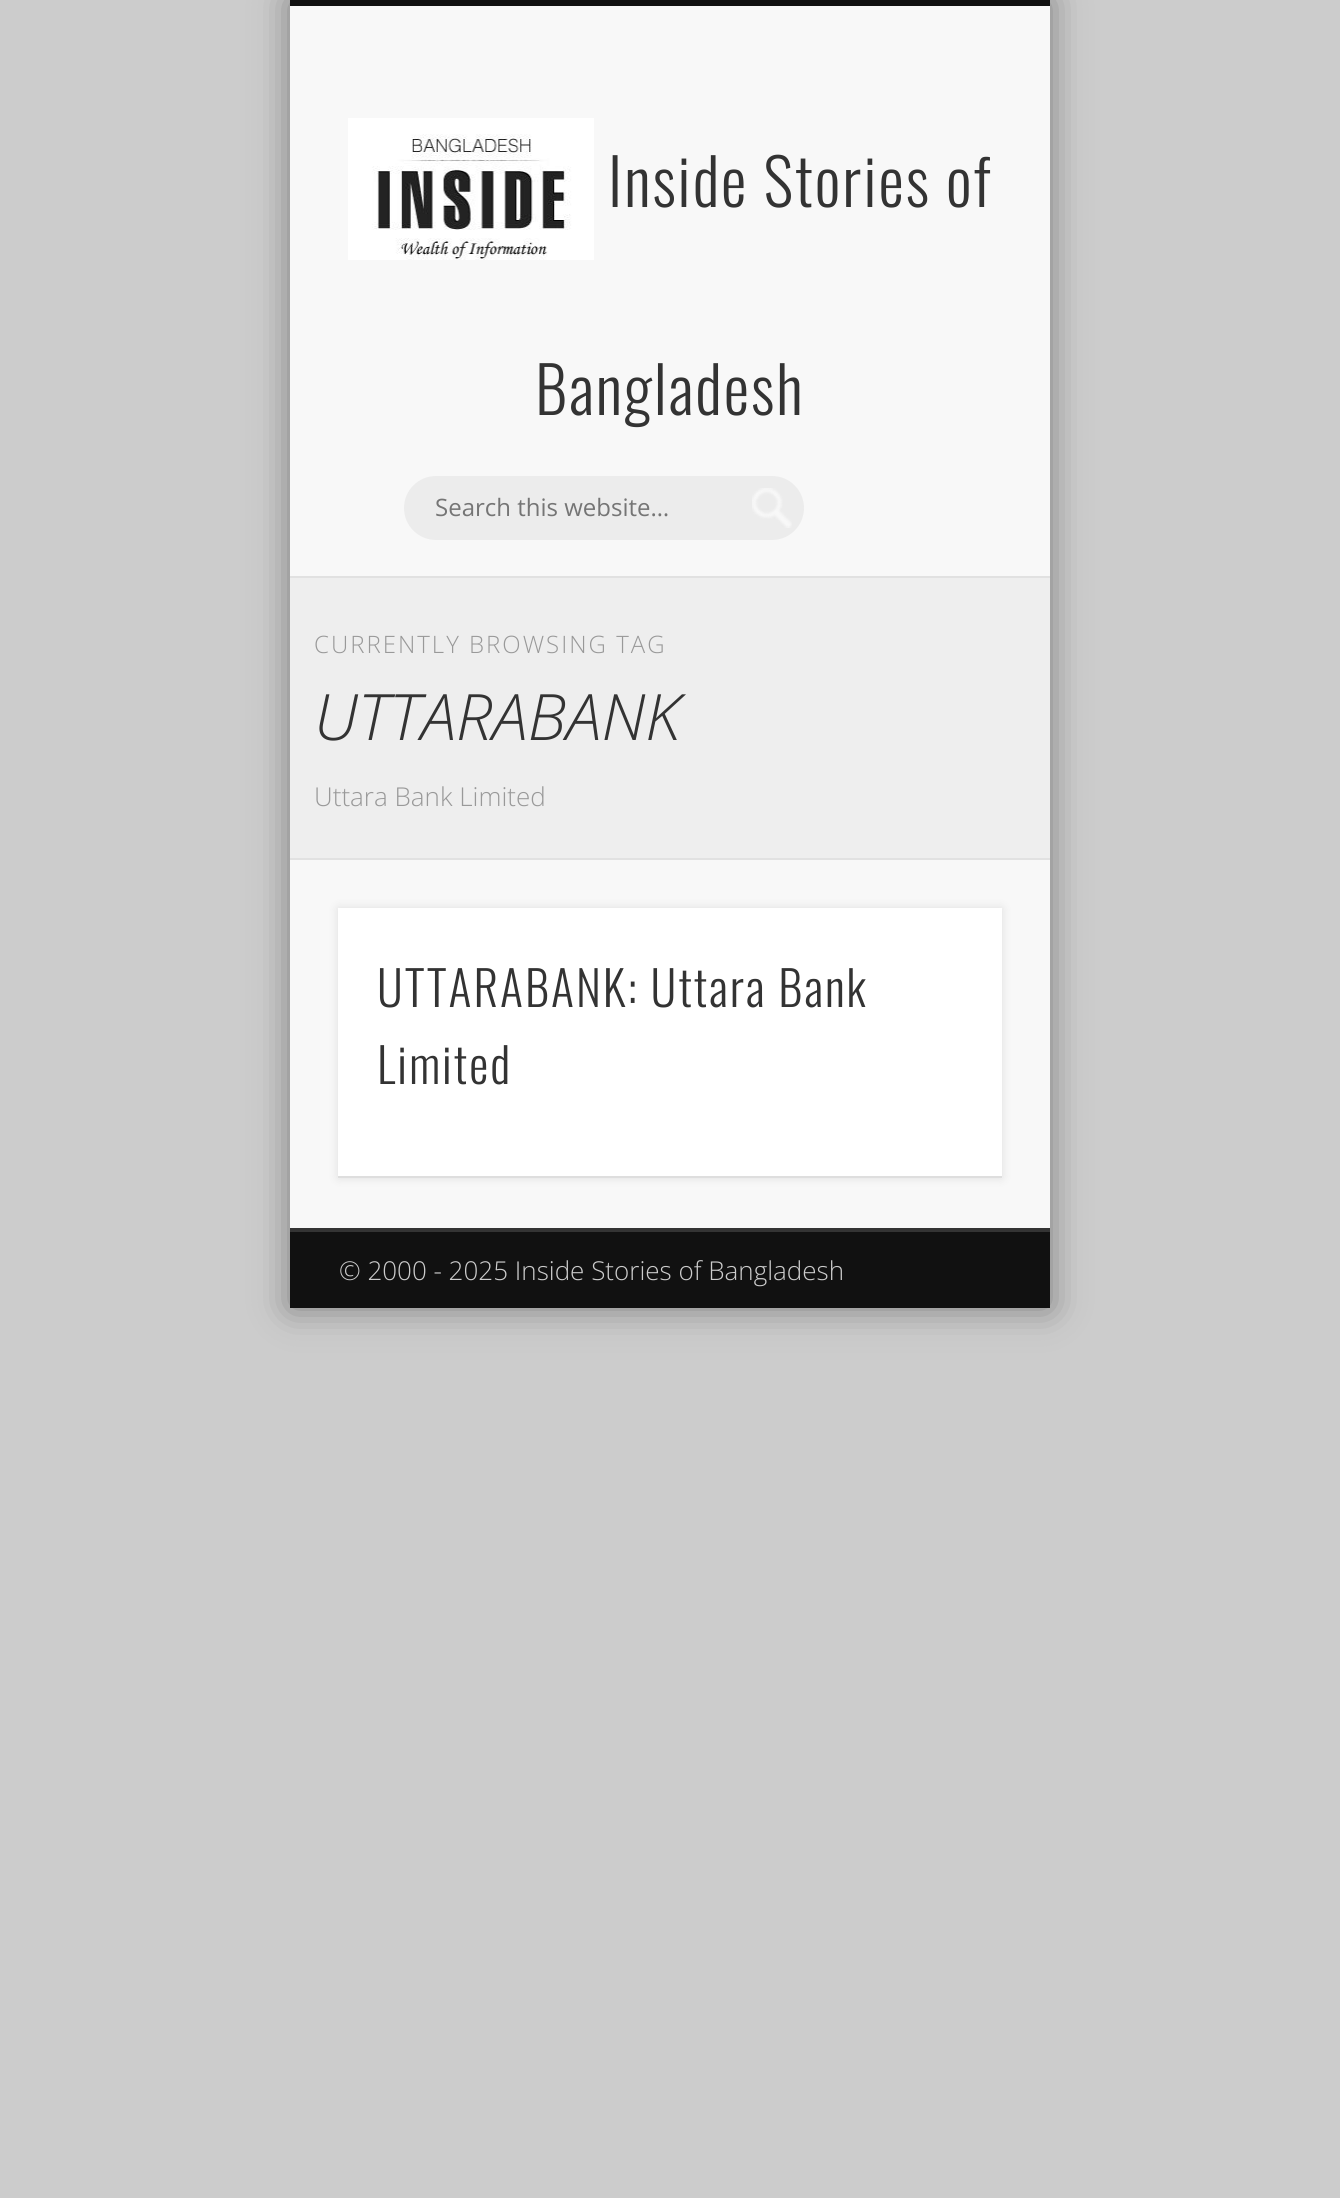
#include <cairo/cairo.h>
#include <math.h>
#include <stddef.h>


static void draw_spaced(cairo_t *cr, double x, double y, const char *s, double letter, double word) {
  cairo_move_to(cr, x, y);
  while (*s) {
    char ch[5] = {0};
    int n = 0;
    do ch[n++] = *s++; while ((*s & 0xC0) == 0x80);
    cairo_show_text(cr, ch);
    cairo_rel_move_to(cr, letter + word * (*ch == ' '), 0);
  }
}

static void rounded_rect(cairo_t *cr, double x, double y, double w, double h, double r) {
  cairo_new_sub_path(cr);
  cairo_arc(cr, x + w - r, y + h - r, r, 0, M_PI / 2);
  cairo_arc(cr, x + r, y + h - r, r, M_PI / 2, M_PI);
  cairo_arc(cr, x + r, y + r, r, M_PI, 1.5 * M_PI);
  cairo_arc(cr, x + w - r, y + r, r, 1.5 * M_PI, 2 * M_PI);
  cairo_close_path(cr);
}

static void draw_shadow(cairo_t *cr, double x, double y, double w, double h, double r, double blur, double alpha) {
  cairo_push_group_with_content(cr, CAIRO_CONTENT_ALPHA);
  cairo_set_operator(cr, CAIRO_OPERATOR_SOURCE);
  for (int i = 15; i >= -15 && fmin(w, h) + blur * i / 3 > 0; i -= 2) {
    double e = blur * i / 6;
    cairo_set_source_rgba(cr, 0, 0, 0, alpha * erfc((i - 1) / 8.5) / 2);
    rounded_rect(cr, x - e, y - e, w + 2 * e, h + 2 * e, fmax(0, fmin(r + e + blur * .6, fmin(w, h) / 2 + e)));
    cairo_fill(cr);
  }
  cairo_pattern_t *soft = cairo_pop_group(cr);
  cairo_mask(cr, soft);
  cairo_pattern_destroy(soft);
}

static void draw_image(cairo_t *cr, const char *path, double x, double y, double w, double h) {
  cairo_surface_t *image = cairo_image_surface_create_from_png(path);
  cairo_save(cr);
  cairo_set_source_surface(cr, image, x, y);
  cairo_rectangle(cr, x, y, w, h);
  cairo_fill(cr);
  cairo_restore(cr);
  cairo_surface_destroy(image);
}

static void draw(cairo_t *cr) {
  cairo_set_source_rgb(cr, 204 / 255.0, 204 / 255.0, 204 / 255.0);
  cairo_paint(cr);
  cairo_set_source_rgb(cr, 0, 0, 0);
  draw_shadow(cr, 290, 0, 760, 1308, 0, 18, 0.4);
  cairo_set_source_rgb(cr, 248 / 255.0, 248 / 255.0, 248 / 255.0);
  cairo_rectangle(cr, 290, 6, 760, 1222);
  cairo_fill(cr);
  cairo_set_source_rgb(cr, 17 / 255.0, 17 / 255.0, 17 / 255.0);
  cairo_rectangle(cr, 290, 0, 760, 6);
  cairo_fill(cr);
  draw_image(cr, "images/1.png", 348, 118, 246, 142);
  cairo_set_source_rgb(cr, 236 / 255.0, 236 / 255.0, 236 / 255.0);
  rounded_rect(cr, 404, 476, 400, 64, 32);
  cairo_fill(cr);
  draw_image(cr, "images/2.png", 752, 488, 40, 40);
  cairo_set_source_rgb(cr, 238 / 255.0, 238 / 255.0, 238 / 255.0);
  cairo_rectangle(cr, 290, 578, 760, 280);
  cairo_fill(cr);
  cairo_set_source_rgb(cr, 225 / 255.0, 225 / 255.0, 225 / 255.0);
  cairo_rectangle(cr, 290, 576, 760, 2);
  cairo_fill(cr);
  cairo_rectangle(cr, 290, 858, 760, 2);
  cairo_fill(cr);
  cairo_set_source_rgb(cr, 0, 0, 0);
  draw_shadow(cr, 338, 908, 664, 270, 0, 5, 0.1);
  cairo_set_source_rgb(cr, 1, 1, 1);
  cairo_rectangle(cr, 338, 908, 664, 268);
  cairo_fill(cr);
  cairo_set_source_rgb(cr, 222 / 255.0, 222 / 255.0, 222 / 255.0);
  cairo_rectangle(cr, 338, 1176, 664, 2);
  cairo_fill(cr);
  cairo_set_source_rgb(cr, 52 / 255.0, 52 / 255.0, 52 / 255.0);
  cairo_rectangle(cr, 290, 1228, 760, 4);
  cairo_fill(cr);
  cairo_set_source_rgb(cr, 17 / 255.0, 17 / 255.0, 17 / 255.0);
  cairo_rectangle(cr, 290, 1232, 760, 76);
  cairo_fill(cr);
  cairo_select_font_face(cr, "Oswald Light", CAIRO_FONT_SLANT_NORMAL, CAIRO_FONT_WEIGHT_NORMAL);
  cairo_set_font_size(cr, 64);
  cairo_set_source_rgb(cr, 51 / 255.0, 51 / 255.0, 51 / 255.0);
  draw_spaced(cr, 608, 207, "Inside Stories of", 2, 0);
  draw_spaced(cr, 535, 415, "Bangladesh", 2, 0);
  cairo_select_font_face(cr, "Open Sans", CAIRO_FONT_SLANT_NORMAL, CAIRO_FONT_WEIGHT_NORMAL);
  cairo_set_font_size(cr, 24);
  cairo_set_source_rgb(cr, 117 / 255.0, 117 / 255.0, 117 / 255.0);
  cairo_move_to(cr, 435, 516);
  cairo_show_text(cr, "Search this website…");
  cairo_select_font_face(cr, "Open Sans Light", CAIRO_FONT_SLANT_NORMAL, CAIRO_FONT_WEIGHT_NORMAL);
  cairo_set_source_rgb(cr, 153 / 255.0, 153 / 255.0, 153 / 255.0);
  draw_spaced(cr, 314, 653, "CURRENTLY BROWSING TAG", 2, 0);
  cairo_select_font_face(cr, "Open Sans Light", CAIRO_FONT_SLANT_ITALIC, CAIRO_FONT_WEIGHT_NORMAL);
  cairo_set_font_size(cr, 64);
  cairo_set_source_rgb(cr, 51 / 255.0, 51 / 255.0, 51 / 255.0);
  cairo_move_to(cr, 314, 740);
  cairo_show_text(cr, "UTTARABANK");
  cairo_select_font_face(cr, "Open Sans Light", CAIRO_FONT_SLANT_NORMAL, CAIRO_FONT_WEIGHT_NORMAL);
  cairo_set_font_size(cr, 26);
  cairo_set_source_rgb(cr, 153 / 255.0, 153 / 255.0, 153 / 255.0);
  cairo_move_to(cr, 314, 806);
  cairo_show_text(cr, "Uttara Bank Limited");
  cairo_select_font_face(cr, "Oswald Light", CAIRO_FONT_SLANT_NORMAL, CAIRO_FONT_WEIGHT_NORMAL);
  cairo_set_font_size(cr, 48);
  cairo_set_source_rgb(cr, 51 / 255.0, 51 / 255.0, 51 / 255.0);
  draw_spaced(cr, 377, 1007, "UTTARABANK: Uttara Bank", 2, 0);
  draw_spaced(cr, 377, 1084, "Limited", 2, 0);
  cairo_select_font_face(cr, "Open Sans Light", CAIRO_FONT_SLANT_NORMAL, CAIRO_FONT_WEIGHT_NORMAL);
  cairo_set_font_size(cr, 26);
  cairo_set_source_rgb(cr, 204 / 255.0, 204 / 255.0, 204 / 255.0);
  cairo_move_to(cr, 339, 1280);
  cairo_show_text(cr, "© 2000 - 2025 Inside Stories of Bangladesh");
}

int main(void) {
  cairo_surface_t *surface = cairo_image_surface_create(CAIRO_FORMAT_RGB24, 1340, 2198);
  cairo_t *cr = cairo_create(surface);
  cairo_font_options_t *options = cairo_font_options_create();
  cairo_font_options_set_hint_metrics(options, CAIRO_HINT_METRICS_OFF);
  cairo_font_options_set_hint_style(options, CAIRO_HINT_STYLE_NONE);
  cairo_set_font_options(cr, options);
  cairo_set_miter_limit(cr, 4);
  draw(cr);
  cairo_surface_write_to_png(surface, "out.png");
  cairo_font_options_destroy(options);
  cairo_destroy(cr);
  cairo_surface_destroy(surface);
  return 0;
}
